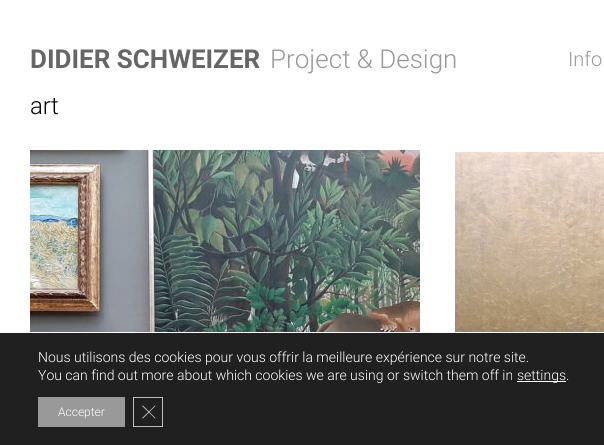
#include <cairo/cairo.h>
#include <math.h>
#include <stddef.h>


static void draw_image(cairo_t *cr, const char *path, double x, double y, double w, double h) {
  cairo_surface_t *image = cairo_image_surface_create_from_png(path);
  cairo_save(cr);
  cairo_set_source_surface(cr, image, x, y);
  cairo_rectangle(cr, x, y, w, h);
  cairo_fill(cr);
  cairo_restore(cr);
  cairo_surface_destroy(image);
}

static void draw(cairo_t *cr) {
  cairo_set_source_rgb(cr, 1, 1, 1);
  cairo_paint(cr);
  draw_image(cr, "images/1.png", 30, 150, 390, 182);
  draw_image(cr, "images/2.png", 455, 152, 149, 180);
  cairo_set_source_rgb(cr, 32 / 255.0, 32 / 255.0, 32 / 255.0);
  cairo_rectangle(cr, 0, 333, 604, 112);
  cairo_fill(cr);
  cairo_set_source_rgb(cr, 1, 1, 1);
  cairo_rectangle(cr, 517, 381, 49, 1);
  cairo_fill(cr);
  cairo_set_source_rgb(cr, 153 / 255.0, 153 / 255.0, 153 / 255.0);
  cairo_rectangle(cr, 38, 397, 87, 30);
  cairo_fill(cr);
  cairo_rectangle(cr, 133.5, 397.5, 29, 29);
  cairo_set_source_rgb(cr, 188 / 255.0, 188 / 255.0, 188 / 255.0);
  cairo_set_line_width(cr, 1);
  cairo_stroke(cr);
  cairo_new_path(cr);
  cairo_move_to(cr, 155, 405.5);
  cairo_line_to(cr, 155.5, 406);
  cairo_line_to(cr, 143, 418.5);
  cairo_line_to(cr, 142, 418);
  cairo_close_path(cr);
  cairo_fill(cr);
  cairo_new_path(cr);
  cairo_move_to(cr, 142, 406);
  cairo_line_to(cr, 143, 405.5);
  cairo_line_to(cr, 155.5, 418);
  cairo_line_to(cr, 155, 418.5);
  cairo_close_path(cr);
  cairo_fill(cr);
  cairo_select_font_face(cr, "Roboto", CAIRO_FONT_SLANT_NORMAL, CAIRO_FONT_WEIGHT_BOLD);
  cairo_set_font_size(cr, 26);
  cairo_set_source_rgb(cr, 102 / 255.0, 102 / 255.0, 102 / 255.0);
  cairo_move_to(cr, 30, 68);
  cairo_show_text(cr, "DIDIER SCHWEIZER");
  cairo_select_font_face(cr, "Roboto Light", CAIRO_FONT_SLANT_NORMAL, CAIRO_FONT_WEIGHT_NORMAL);
  cairo_set_source_rgb(cr, 153 / 255.0, 153 / 255.0, 153 / 255.0);
  cairo_move_to(cr, 270, 68);
  cairo_show_text(cr, "Project & Design");
  cairo_set_font_size(cr, 20);
  cairo_move_to(cr, 568, 66);
  cairo_show_text(cr, "Info");
  cairo_set_font_size(cr, 24);
  cairo_set_source_rgb(cr, 0, 0, 0);
  cairo_move_to(cr, 30, 114);
  cairo_show_text(cr, "art");
  cairo_set_font_size(cr, 14);
  cairo_set_source_rgb(cr, 1, 1, 1);
  cairo_move_to(cr, 38, 362);
  cairo_show_text(cr, "Nous utilisons des cookies pour vous offrir la meilleure expérience sur notre site.");
  cairo_move_to(cr, 38, 380);
  cairo_show_text(cr, "You can find out more about which cookies we are using or switch them off in");
  cairo_move_to(cr, 517, 380);
  cairo_show_text(cr, "settings.");
  cairo_set_font_size(cr, 12);
  cairo_move_to(cr, 58, 416);
  cairo_show_text(cr, "Accepter");
}

int main(void) {
  cairo_surface_t *surface = cairo_image_surface_create(CAIRO_FORMAT_RGB24, 604, 445);
  cairo_t *cr = cairo_create(surface);
  cairo_font_options_t *options = cairo_font_options_create();
  cairo_font_options_set_hint_metrics(options, CAIRO_HINT_METRICS_OFF);
  cairo_font_options_set_hint_style(options, CAIRO_HINT_STYLE_NONE);
  cairo_set_font_options(cr, options);
  cairo_set_miter_limit(cr, 4);
  draw(cr);
  cairo_surface_write_to_png(surface, "out.png");
  cairo_font_options_destroy(options);
  cairo_destroy(cr);
  cairo_surface_destroy(surface);
  return 0;
}
